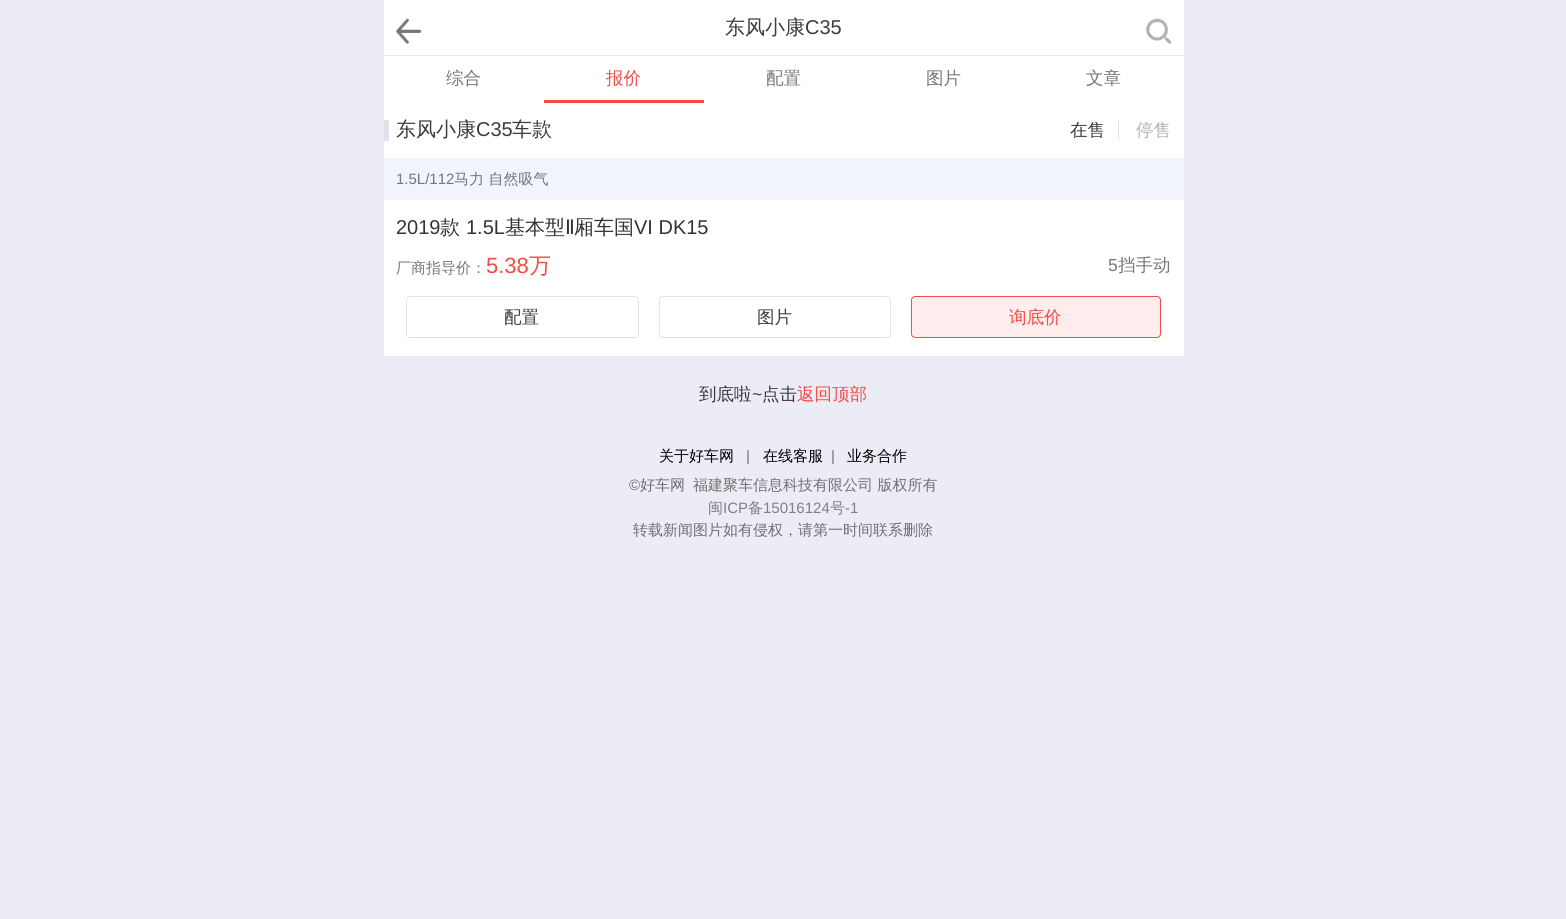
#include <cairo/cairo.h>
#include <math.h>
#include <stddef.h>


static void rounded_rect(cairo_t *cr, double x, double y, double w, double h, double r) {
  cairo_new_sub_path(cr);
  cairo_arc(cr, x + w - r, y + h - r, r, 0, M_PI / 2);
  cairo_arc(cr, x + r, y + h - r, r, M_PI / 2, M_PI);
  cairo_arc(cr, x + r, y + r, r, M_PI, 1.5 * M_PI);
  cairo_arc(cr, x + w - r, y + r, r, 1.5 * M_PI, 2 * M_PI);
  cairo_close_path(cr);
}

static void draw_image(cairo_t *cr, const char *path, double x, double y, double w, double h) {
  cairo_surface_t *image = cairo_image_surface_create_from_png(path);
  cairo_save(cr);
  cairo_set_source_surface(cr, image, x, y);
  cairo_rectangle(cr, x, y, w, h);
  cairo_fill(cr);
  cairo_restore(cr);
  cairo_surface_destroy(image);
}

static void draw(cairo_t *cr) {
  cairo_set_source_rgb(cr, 235 / 255.0, 236 / 255.0, 245 / 255.0);
  cairo_paint(cr);
  cairo_set_source_rgb(cr, 1, 1, 1);
  cairo_rectangle(cr, 384, 0, 800, 55);
  cairo_fill(cr);
  cairo_set_source_rgb(cr, 232 / 255.0, 232 / 255.0, 232 / 255.0);
  cairo_rectangle(cr, 384, 55, 800, 1);
  cairo_fill(cr);
  draw_image(cr, "images/1.png", 396, 18, 26, 26);
  draw_image(cr, "images/2.png", 1146, 18, 26, 26);
  cairo_set_source_rgb(cr, 1, 1, 1);
  cairo_rectangle(cr, 384, 56, 800, 300);
  cairo_fill(cr);
  cairo_set_source_rgb(cr, 245 / 255.0, 74 / 255.0, 69 / 255.0);
  cairo_rectangle(cr, 544, 100, 160, 3);
  cairo_fill(cr);
  cairo_set_source_rgb(cr, 225 / 255.0, 226 / 255.0, 235 / 255.0);
  cairo_rectangle(cr, 384, 120, 5, 21);
  cairo_fill(cr);
  cairo_set_source_rgb(cr, 224 / 255.0, 224 / 255.0, 224 / 255.0);
  cairo_rectangle(cr, 1118, 121, 1, 18);
  cairo_fill(cr);
  cairo_set_source_rgb(cr, 242 / 255.0, 244 / 255.0, 252 / 255.0);
  cairo_rectangle(cr, 384, 158, 800, 42);
  cairo_fill(cr);
  rounded_rect(cr, 406.5, 296.5, 232, 41, 3.5);
  cairo_set_source_rgb(cr, 225 / 255.0, 226 / 255.0, 235 / 255.0);
  cairo_set_line_width(cr, 1);
  cairo_stroke(cr);
  rounded_rect(cr, 659.5, 296.5, 231, 41, 3.5);
  cairo_stroke(cr);
  cairo_set_source_rgb(cr, 254 / 255.0, 237 / 255.0, 236 / 255.0);
  rounded_rect(cr, 911.5, 296.5, 249, 41, 3.5);
  cairo_fill_preserve(cr);
  cairo_set_source_rgb(cr, 245 / 255.0, 74 / 255.0, 69 / 255.0);
  cairo_stroke(cr);
  cairo_select_font_face(cr, "WenQuanYi Zen Hei Medium", CAIRO_FONT_SLANT_NORMAL, CAIRO_FONT_WEIGHT_NORMAL);
  cairo_set_font_size(cr, 20);
  cairo_set_source_rgb(cr, 59 / 255.0, 59 / 255.0, 61 / 255.0);
  cairo_move_to(cr, 725, 34);
  cairo_show_text(cr, "东风小康");
  cairo_select_font_face(cr, "Liberation Sans", CAIRO_FONT_SLANT_NORMAL, CAIRO_FONT_WEIGHT_NORMAL);
  cairo_move_to(cr, 805, 34);
  cairo_show_text(cr, "C35");
  cairo_select_font_face(cr, "WenQuanYi Zen Hei Medium", CAIRO_FONT_SLANT_NORMAL, CAIRO_FONT_WEIGHT_NORMAL);
  cairo_set_font_size(cr, 17.5);
  cairo_set_source_rgb(cr, 118 / 255.0, 118 / 255.0, 122 / 255.0);
  cairo_move_to(cr, 446, 84);
  cairo_show_text(cr, "综合");
  cairo_set_source_rgb(cr, 245 / 255.0, 74 / 255.0, 69 / 255.0);
  cairo_move_to(cr, 606, 84);
  cairo_show_text(cr, "报价");
  cairo_set_source_rgb(cr, 118 / 255.0, 118 / 255.0, 122 / 255.0);
  cairo_move_to(cr, 766, 84);
  cairo_show_text(cr, "配置");
  cairo_move_to(cr, 926, 84);
  cairo_show_text(cr, "图片");
  cairo_move_to(cr, 1086, 84);
  cairo_show_text(cr, "文章");
  cairo_set_font_size(cr, 20);
  cairo_set_source_rgb(cr, 59 / 255.0, 59 / 255.0, 61 / 255.0);
  cairo_move_to(cr, 396, 136);
  cairo_show_text(cr, "东风小康");
  cairo_select_font_face(cr, "Liberation Sans", CAIRO_FONT_SLANT_NORMAL, CAIRO_FONT_WEIGHT_NORMAL);
  cairo_move_to(cr, 476, 136);
  cairo_show_text(cr, "C35");
  cairo_select_font_face(cr, "WenQuanYi Zen Hei Medium", CAIRO_FONT_SLANT_NORMAL, CAIRO_FONT_WEIGHT_NORMAL);
  cairo_move_to(cr, 512, 136);
  cairo_show_text(cr, "车款");
  cairo_set_font_size(cr, 17.5);
  cairo_move_to(cr, 1070, 136);
  cairo_show_text(cr, "在售");
  cairo_set_source_rgb(cr, 176 / 255.0, 177 / 255.0, 184 / 255.0);
  cairo_move_to(cr, 1136, 136);
  cairo_show_text(cr, "停售");
  cairo_select_font_face(cr, "Liberation Sans", CAIRO_FONT_SLANT_NORMAL, CAIRO_FONT_WEIGHT_NORMAL);
  cairo_set_font_size(cr, 15);
  cairo_set_source_rgb(cr, 118 / 255.0, 118 / 255.0, 122 / 255.0);
  cairo_move_to(cr, 396, 184);
  cairo_show_text(cr, "1.5L/112");
  cairo_select_font_face(cr, "WenQuanYi Zen Hei Medium", CAIRO_FONT_SLANT_NORMAL, CAIRO_FONT_WEIGHT_NORMAL);
  cairo_move_to(cr, 454, 184);
  cairo_show_text(cr, "马力 自然吸气");
  cairo_select_font_face(cr, "Liberation Sans", CAIRO_FONT_SLANT_NORMAL, CAIRO_FONT_WEIGHT_NORMAL);
  cairo_set_font_size(cr, 20);
  cairo_set_source_rgb(cr, 51 / 255.0, 51 / 255.0, 51 / 255.0);
  cairo_move_to(cr, 396, 234);
  cairo_show_text(cr, "2019");
  cairo_select_font_face(cr, "WenQuanYi Zen Hei Medium", CAIRO_FONT_SLANT_NORMAL, CAIRO_FONT_WEIGHT_NORMAL);
  cairo_move_to(cr, 440, 234);
  cairo_show_text(cr, "款");
  cairo_select_font_face(cr, "Liberation Sans", CAIRO_FONT_SLANT_NORMAL, CAIRO_FONT_WEIGHT_NORMAL);
  cairo_move_to(cr, 466, 234);
  cairo_show_text(cr, "1.5L");
  cairo_select_font_face(cr, "WenQuanYi Zen Hei Medium", CAIRO_FONT_SLANT_NORMAL, CAIRO_FONT_WEIGHT_NORMAL);
  cairo_move_to(cr, 505, 234);
  cairo_show_text(cr, "基本型");
  cairo_select_font_face(cr, "DejaVu Sans", CAIRO_FONT_SLANT_NORMAL, CAIRO_FONT_WEIGHT_NORMAL);
  cairo_move_to(cr, 565, 234);
  cairo_show_text(cr, "Ⅱ");
  cairo_select_font_face(cr, "WenQuanYi Zen Hei Medium", CAIRO_FONT_SLANT_NORMAL, CAIRO_FONT_WEIGHT_NORMAL);
  cairo_move_to(cr, 574, 234);
  cairo_show_text(cr, "厢车国");
  cairo_select_font_face(cr, "Liberation Sans", CAIRO_FONT_SLANT_NORMAL, CAIRO_FONT_WEIGHT_NORMAL);
  cairo_move_to(cr, 634, 234);
  cairo_show_text(cr, "VI DK15");
  cairo_select_font_face(cr, "WenQuanYi Zen Hei Medium", CAIRO_FONT_SLANT_NORMAL, CAIRO_FONT_WEIGHT_NORMAL);
  cairo_set_font_size(cr, 15);
  cairo_set_source_rgb(cr, 118 / 255.0, 118 / 255.0, 122 / 255.0);
  cairo_move_to(cr, 396, 273);
  cairo_show_text(cr, "厂商指导价：");
  cairo_select_font_face(cr, "Liberation Sans", CAIRO_FONT_SLANT_NORMAL, CAIRO_FONT_WEIGHT_NORMAL);
  cairo_set_font_size(cr, 22);
  cairo_set_source_rgb(cr, 245 / 255.0, 74 / 255.0, 69 / 255.0);
  cairo_move_to(cr, 486, 273);
  cairo_show_text(cr, "5.38");
  cairo_select_font_face(cr, "WenQuanYi Zen Hei Medium", CAIRO_FONT_SLANT_NORMAL, CAIRO_FONT_WEIGHT_NORMAL);
  cairo_move_to(cr, 529, 273);
  cairo_show_text(cr, "万");
  cairo_select_font_face(cr, "Liberation Sans", CAIRO_FONT_SLANT_NORMAL, CAIRO_FONT_WEIGHT_NORMAL);
  cairo_set_font_size(cr, 17.5);
  cairo_set_source_rgb(cr, 118 / 255.0, 118 / 255.0, 122 / 255.0);
  cairo_move_to(cr, 1108, 271);
  cairo_show_text(cr, "5");
  cairo_select_font_face(cr, "WenQuanYi Zen Hei Medium", CAIRO_FONT_SLANT_NORMAL, CAIRO_FONT_WEIGHT_NORMAL);
  cairo_move_to(cr, 1118, 271);
  cairo_show_text(cr, "挡手动");
  cairo_set_source_rgb(cr, 59 / 255.0, 59 / 255.0, 61 / 255.0);
  cairo_move_to(cr, 504, 323);
  cairo_show_text(cr, "配置");
  cairo_move_to(cr, 757, 323);
  cairo_show_text(cr, "图片");
  cairo_set_source_rgb(cr, 245 / 255.0, 74 / 255.0, 69 / 255.0);
  cairo_move_to(cr, 1009, 323);
  cairo_show_text(cr, "询底价");
  cairo_set_source_rgb(cr, 59 / 255.0, 59 / 255.0, 61 / 255.0);
  cairo_move_to(cr, 699, 400);
  cairo_show_text(cr, "到底啦");
  cairo_select_font_face(cr, "Liberation Sans", CAIRO_FONT_SLANT_NORMAL, CAIRO_FONT_WEIGHT_NORMAL);
  cairo_move_to(cr, 752, 400);
  cairo_show_text(cr, "~");
  cairo_select_font_face(cr, "WenQuanYi Zen Hei Medium", CAIRO_FONT_SLANT_NORMAL, CAIRO_FONT_WEIGHT_NORMAL);
  cairo_move_to(cr, 762, 400);
  cairo_show_text(cr, "点击");
  cairo_set_source_rgb(cr, 245 / 255.0, 74 / 255.0, 69 / 255.0);
  cairo_move_to(cr, 797, 400);
  cairo_show_text(cr, "返回顶部");
  cairo_set_font_size(cr, 15);
  cairo_set_source_rgb(cr, 0, 0, 0);
  cairo_move_to(cr, 659, 461);
  cairo_show_text(cr, "关于好车网");
  cairo_select_font_face(cr, "Liberation Sans", CAIRO_FONT_SLANT_NORMAL, CAIRO_FONT_WEIGHT_NORMAL);
  cairo_set_source_rgb(cr, 112 / 255.0, 112 / 255.0, 112 / 255.0);
  cairo_move_to(cr, 746, 461);
  cairo_show_text(cr, "|");
  cairo_select_font_face(cr, "WenQuanYi Zen Hei Medium", CAIRO_FONT_SLANT_NORMAL, CAIRO_FONT_WEIGHT_NORMAL);
  cairo_set_source_rgb(cr, 0, 0, 0);
  cairo_move_to(cr, 763, 461);
  cairo_show_text(cr, "在线客服");
  cairo_select_font_face(cr, "Liberation Sans", CAIRO_FONT_SLANT_NORMAL, CAIRO_FONT_WEIGHT_NORMAL);
  cairo_set_source_rgb(cr, 112 / 255.0, 112 / 255.0, 112 / 255.0);
  cairo_move_to(cr, 831, 461);
  cairo_show_text(cr, "|");
  cairo_select_font_face(cr, "WenQuanYi Zen Hei Medium", CAIRO_FONT_SLANT_NORMAL, CAIRO_FONT_WEIGHT_NORMAL);
  cairo_set_source_rgb(cr, 0, 0, 0);
  cairo_move_to(cr, 847, 461);
  cairo_show_text(cr, "业务合作");
  cairo_select_font_face(cr, "Liberation Sans", CAIRO_FONT_SLANT_NORMAL, CAIRO_FONT_WEIGHT_NORMAL);
  cairo_set_source_rgb(cr, 112 / 255.0, 112 / 255.0, 112 / 255.0);
  cairo_move_to(cr, 629, 490);
  cairo_show_text(cr, "©");
  cairo_select_font_face(cr, "WenQuanYi Zen Hei Medium", CAIRO_FONT_SLANT_NORMAL, CAIRO_FONT_WEIGHT_NORMAL);
  cairo_move_to(cr, 640, 490);
  cairo_show_text(cr, "好车网");
  cairo_move_to(cr, 693, 490);
  cairo_show_text(cr, "福建聚车信息科技有限公司 版权所有");
  cairo_set_source_rgb(cr, 128 / 255.0, 128 / 255.0, 128 / 255.0);
  cairo_move_to(cr, 708, 513);
  cairo_show_text(cr, "闽");
  cairo_select_font_face(cr, "Liberation Sans", CAIRO_FONT_SLANT_NORMAL, CAIRO_FONT_WEIGHT_NORMAL);
  cairo_move_to(cr, 723, 513);
  cairo_show_text(cr, "ICP");
  cairo_select_font_face(cr, "WenQuanYi Zen Hei Medium", CAIRO_FONT_SLANT_NORMAL, CAIRO_FONT_WEIGHT_NORMAL);
  cairo_move_to(cr, 748, 513);
  cairo_show_text(cr, "备");
  cairo_select_font_face(cr, "Liberation Sans", CAIRO_FONT_SLANT_NORMAL, CAIRO_FONT_WEIGHT_NORMAL);
  cairo_move_to(cr, 763, 513);
  cairo_show_text(cr, "15016124");
  cairo_select_font_face(cr, "WenQuanYi Zen Hei Medium", CAIRO_FONT_SLANT_NORMAL, CAIRO_FONT_WEIGHT_NORMAL);
  cairo_move_to(cr, 830, 513);
  cairo_show_text(cr, "号");
  cairo_select_font_face(cr, "Liberation Sans", CAIRO_FONT_SLANT_NORMAL, CAIRO_FONT_WEIGHT_NORMAL);
  cairo_move_to(cr, 845, 513);
  cairo_show_text(cr, "-1");
  cairo_select_font_face(cr, "WenQuanYi Zen Hei Medium", CAIRO_FONT_SLANT_NORMAL, CAIRO_FONT_WEIGHT_NORMAL);
  cairo_set_source_rgb(cr, 112 / 255.0, 112 / 255.0, 112 / 255.0);
  cairo_move_to(cr, 633, 535);
  cairo_show_text(cr, "转载新闻图片如有侵权，请第一时间联系删除");
}

int main(void) {
  cairo_surface_t *surface = cairo_image_surface_create(CAIRO_FORMAT_RGB24, 1566, 919);
  cairo_t *cr = cairo_create(surface);
  cairo_font_options_t *options = cairo_font_options_create();
  cairo_font_options_set_hint_metrics(options, CAIRO_HINT_METRICS_OFF);
  cairo_font_options_set_hint_style(options, CAIRO_HINT_STYLE_NONE);
  cairo_set_font_options(cr, options);
  cairo_set_miter_limit(cr, 4);
  draw(cr);
  cairo_surface_write_to_png(surface, "out.png");
  cairo_font_options_destroy(options);
  cairo_destroy(cr);
  cairo_surface_destroy(surface);
  return 0;
}
